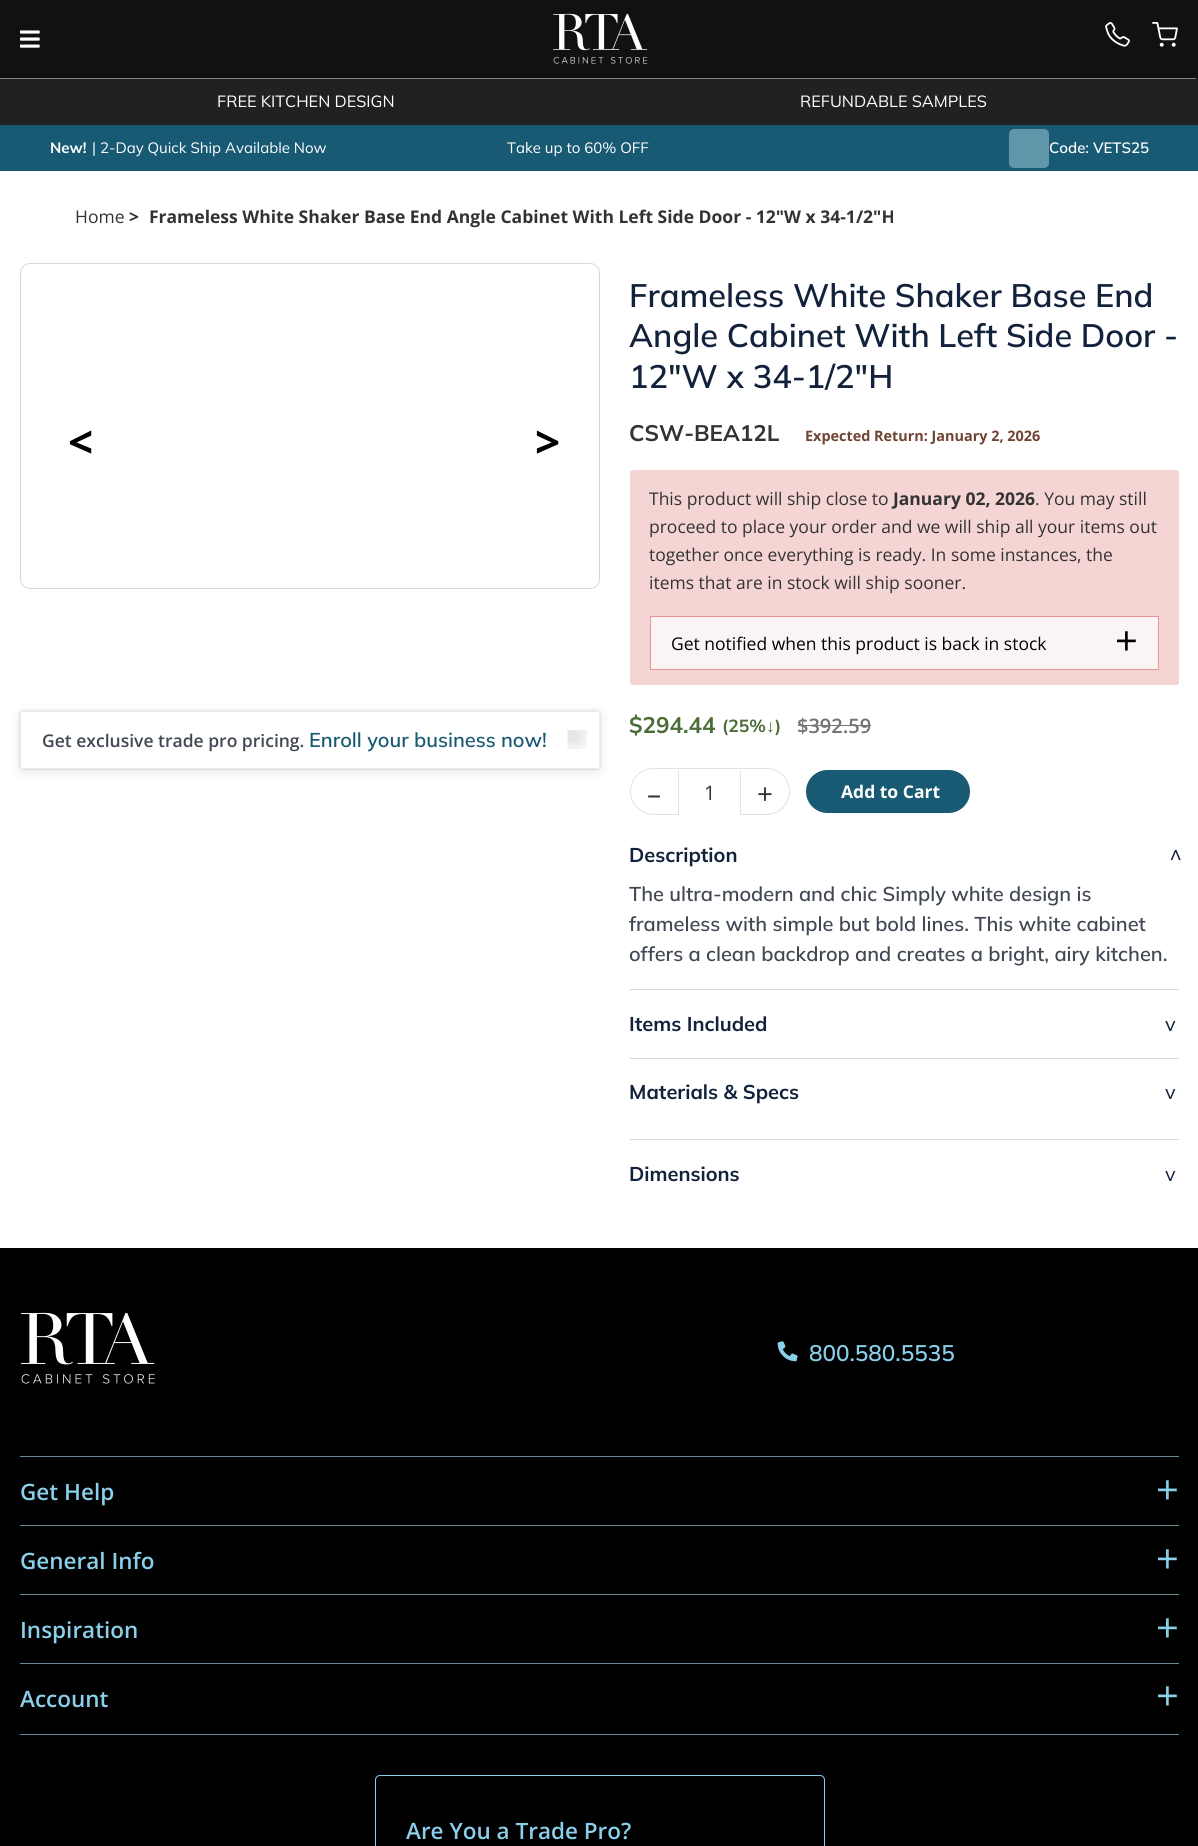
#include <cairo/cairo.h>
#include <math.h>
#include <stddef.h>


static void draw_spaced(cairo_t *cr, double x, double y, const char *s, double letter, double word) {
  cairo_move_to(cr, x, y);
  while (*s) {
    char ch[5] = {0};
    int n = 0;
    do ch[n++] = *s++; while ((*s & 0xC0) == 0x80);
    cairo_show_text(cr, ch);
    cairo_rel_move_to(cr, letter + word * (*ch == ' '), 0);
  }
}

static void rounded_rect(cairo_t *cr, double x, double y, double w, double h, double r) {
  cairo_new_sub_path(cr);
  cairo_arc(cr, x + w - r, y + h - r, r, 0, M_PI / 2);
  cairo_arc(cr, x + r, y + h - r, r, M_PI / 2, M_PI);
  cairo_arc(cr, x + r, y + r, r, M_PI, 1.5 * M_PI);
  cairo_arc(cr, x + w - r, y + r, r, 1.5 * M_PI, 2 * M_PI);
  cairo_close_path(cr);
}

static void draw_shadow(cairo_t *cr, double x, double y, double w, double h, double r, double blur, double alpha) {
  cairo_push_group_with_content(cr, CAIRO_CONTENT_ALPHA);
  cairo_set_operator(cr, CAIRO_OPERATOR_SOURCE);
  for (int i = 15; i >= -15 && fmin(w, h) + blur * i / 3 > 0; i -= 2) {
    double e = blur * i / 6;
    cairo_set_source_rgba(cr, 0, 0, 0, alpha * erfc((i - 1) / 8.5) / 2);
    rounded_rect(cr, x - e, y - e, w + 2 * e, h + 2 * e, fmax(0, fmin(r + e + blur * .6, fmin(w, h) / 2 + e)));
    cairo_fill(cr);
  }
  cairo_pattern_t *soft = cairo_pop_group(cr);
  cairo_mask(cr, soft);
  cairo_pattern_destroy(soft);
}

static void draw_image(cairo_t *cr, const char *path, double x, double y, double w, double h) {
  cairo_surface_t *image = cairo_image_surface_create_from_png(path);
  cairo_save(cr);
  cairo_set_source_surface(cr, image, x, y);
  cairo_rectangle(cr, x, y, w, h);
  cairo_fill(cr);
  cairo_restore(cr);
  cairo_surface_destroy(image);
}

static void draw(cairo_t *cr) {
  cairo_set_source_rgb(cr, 1, 1, 1);
  cairo_paint(cr);
  cairo_set_source_rgb(cr, 17 / 255.0, 17 / 255.0, 17 / 255.0);
  cairo_rectangle(cr, 0, 0, 1198, 80);
  cairo_fill(cr);
  draw_image(cr, "images/1.png", 20, 30, 20, 18);
  draw_image(cr, "images/2.png", 553, 13, 95, 51);
  draw_image(cr, "images/3.png", 1105, 22, 25, 25);
  draw_image(cr, "images/4.png", 1152, 22, 26, 25);
  cairo_set_source_rgb(cr, 33 / 255.0, 33 / 255.0, 33 / 255.0);
  cairo_new_path(cr);
  cairo_move_to(cr, -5, 78);
  cairo_line_to(cr, 1194, 78);
  cairo_curve_to(cr, 1197, 78, 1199, 80, 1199, 83);
  cairo_line_to(cr, 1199, 125);
  cairo_line_to(cr, -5, 125);
  cairo_close_path(cr);
  cairo_fill(cr);
  cairo_set_source_rgb(cr, 131 / 255.0, 131 / 255.0, 131 / 255.0);
  cairo_rectangle(cr, 0, 78, 1196, 1);
  cairo_fill(cr);
  cairo_set_source_rgb(cr, 24 / 255.0, 90 / 255.0, 115 / 255.0);
  cairo_rectangle(cr, 0, 125, 1198, 46);
  cairo_fill(cr);
  cairo_set_source_rgb(cr, 96 / 255.0, 150 / 255.0, 170 / 255.0);
  rounded_rect(cr, 1009, 129, 40, 39, 5);
  cairo_fill(cr);
  rounded_rect(cr, 20.5, 263.5, 579, 325, 9.5);
  cairo_set_source_rgb(cr, 216 / 255.0, 216 / 255.0, 216 / 255.0);
  cairo_set_line_width(cr, 1);
  cairo_stroke(cr);
  cairo_save(cr);
  cairo_set_fill_rule(cr, CAIRO_FILL_RULE_EVEN_ODD);
  cairo_new_path(cr);
  cairo_move_to(cr, 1, 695);
  cairo_line_to(cr, 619, 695);
  cairo_line_to(cr, 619, 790);
  cairo_line_to(cr, 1, 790);
  cairo_close_path(cr);
  cairo_move_to(cr, 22.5, 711);
  cairo_line_to(cr, 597.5, 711);
  cairo_curve_to(cr, 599, 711, 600, 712, 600, 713.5);
  cairo_line_to(cr, 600, 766.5);
  cairo_curve_to(cr, 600, 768, 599, 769, 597.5, 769);
  cairo_line_to(cr, 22.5, 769);
  cairo_curve_to(cr, 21, 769, 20, 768, 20, 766.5);
  cairo_line_to(cr, 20, 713.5);
  cairo_curve_to(cr, 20, 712, 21, 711, 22.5, 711);
  cairo_close_path(cr);
  cairo_clip(cr);
  cairo_set_source_rgb(cr, 0, 0, 0);
  draw_shadow(cr, 20, 714, 580, 57, 2.5, 6, 0.1);
  cairo_restore(cr);
  cairo_save(cr);
  cairo_set_fill_rule(cr, CAIRO_FILL_RULE_EVEN_ODD);
  cairo_new_path(cr);
  cairo_move_to(cr, 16, 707);
  cairo_line_to(cr, 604, 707);
  cairo_line_to(cr, 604, 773);
  cairo_line_to(cr, 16, 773);
  cairo_close_path(cr);
  cairo_move_to(cr, 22.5, 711);
  cairo_line_to(cr, 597.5, 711);
  cairo_curve_to(cr, 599, 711, 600, 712, 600, 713.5);
  cairo_line_to(cr, 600, 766.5);
  cairo_curve_to(cr, 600, 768, 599, 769, 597.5, 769);
  cairo_line_to(cr, 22.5, 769);
  cairo_curve_to(cr, 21, 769, 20, 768, 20, 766.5);
  cairo_line_to(cr, 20, 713.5);
  cairo_curve_to(cr, 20, 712, 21, 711, 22.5, 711);
  cairo_close_path(cr);
  cairo_clip(cr);
  cairo_set_source_rgb(cr, 0, 0, 0);
  draw_shadow(cr, 20, 711, 580, 58, 2.5, 1, 0.2);
  cairo_restore(cr);
  rounded_rect(cr, 20.5, 711.5, 579, 57, 2);
  cairo_set_source_rgb(cr, 228 / 255.0, 237 / 255.0, 246 / 255.0);
  cairo_stroke(cr);
  draw_image(cr, "images/5.png", 567, 730, 20, 19);
  cairo_set_source_rgb(cr, 245 / 255.0, 212 / 255.0, 212 / 255.0);
  rounded_rect(cr, 630, 470, 549, 215, 2.5);
  cairo_fill(cr);
  cairo_set_source_rgb(cr, 251 / 255.0, 244 / 255.0, 244 / 255.0);
  cairo_rectangle(cr, 650.5, 616.5, 508, 53);
  cairo_fill_preserve(cr);
  cairo_set_source_rgb(cr, 234 / 255.0, 148 / 255.0, 148 / 255.0);
  cairo_stroke(cr);
  cairo_set_source_rgb(cr, 116 / 255.0, 116 / 255.0, 116 / 255.0);
  cairo_rectangle(cr, 798, 725, 73, 1);
  cairo_fill(cr);
  rounded_rect(cr, 630.5, 768.5, 159, 46, 23);
  cairo_set_source_rgb(cr, 226 / 255.0, 226 / 255.0, 226 / 255.0);
  cairo_stroke(cr);
  cairo_set_source_rgb(cr, 254 / 255.0, 254 / 255.0, 254 / 255.0);
  cairo_rectangle(cr, 679, 814, 61, 1);
  cairo_fill(cr);
  cairo_set_source_rgb(cr, 226 / 255.0, 226 / 255.0, 226 / 255.0);
  cairo_rectangle(cr, 740, 771, 1, 44);
  cairo_fill(cr);
  cairo_rectangle(cr, 678, 771, 1, 44);
  cairo_fill(cr);
  cairo_set_source_rgb(cr, 24 / 255.0, 90 / 255.0, 115 / 255.0);
  rounded_rect(cr, 806, 770, 164, 43, 21.5);
  cairo_fill(cr);
  cairo_set_source_rgb(cr, 213 / 255.0, 218 / 255.0, 224 / 255.0);
  cairo_rectangle(cr, 630, 989, 549, 1);
  cairo_fill(cr);
  cairo_rectangle(cr, 630, 1058, 549, 1);
  cairo_fill(cr);
  cairo_rectangle(cr, 630, 1139, 549, 1);
  cairo_fill(cr);
  cairo_set_source_rgb(cr, 0, 0, 0);
  cairo_rectangle(cr, 0, 1248, 1198, 598);
  cairo_fill(cr);
  draw_image(cr, "images/6.png", 21, 1312, 134, 72);
  draw_image(cr, "images/7.png", 777, 1341, 21, 21);
  cairo_set_source_rgb(cr, 106 / 255.0, 139 / 255.0, 152 / 255.0);
  cairo_rectangle(cr, 20, 1456, 1159, 1);
  cairo_fill(cr);
  cairo_rectangle(cr, 20, 1525, 1159, 1);
  cairo_fill(cr);
  cairo_rectangle(cr, 20, 1594, 1159, 1);
  cairo_fill(cr);
  cairo_rectangle(cr, 20, 1663, 1159, 1);
  cairo_fill(cr);
  cairo_rectangle(cr, 20, 1734, 1159, 1);
  cairo_fill(cr);
  rounded_rect(cr, 375.5, 1775.5, 449, 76, 4.5);
  cairo_set_source_rgb(cr, 138 / 255.0, 208 / 255.0, 235 / 255.0);
  cairo_stroke(cr);
  cairo_select_font_face(cr, "Mulish", CAIRO_FONT_SLANT_NORMAL, CAIRO_FONT_WEIGHT_NORMAL);
  cairo_set_font_size(cr, 16.25);
  cairo_set_source_rgb(cr, 1, 1, 1);
  cairo_move_to(cr, 217, 107);
  cairo_show_text(cr, "FREE KITCHEN DESIGN");
  cairo_move_to(cr, 800, 107);
  cairo_show_text(cr, "REFUNDABLE SAMPLES");
  cairo_select_font_face(cr, "Mulish", CAIRO_FONT_SLANT_NORMAL, CAIRO_FONT_WEIGHT_BOLD);
  cairo_set_font_size(cr, 15);
  cairo_move_to(cr, 50, 153);
  cairo_show_text(cr, "New!");
  cairo_select_font_face(cr, "Mulish", CAIRO_FONT_SLANT_NORMAL, CAIRO_FONT_WEIGHT_NORMAL);
  cairo_move_to(cr, 92, 153);
  cairo_show_text(cr, "|");
  cairo_move_to(cr, 100, 153);
  cairo_show_text(cr, "2-Day Quick Ship Available Now");
  cairo_move_to(cr, 507, 153);
  cairo_show_text(cr, "Take up to 60% OFF");
  cairo_select_font_face(cr, "Mulish SemiBold", CAIRO_FONT_SLANT_NORMAL, CAIRO_FONT_WEIGHT_NORMAL);
  cairo_move_to(cr, 1049, 153);
  cairo_show_text(cr, "Code: VETS25");
  cairo_select_font_face(cr, "Open Sans", CAIRO_FONT_SLANT_NORMAL, CAIRO_FONT_WEIGHT_NORMAL);
  cairo_set_font_size(cr, 17.5);
  cairo_set_source_rgb(cr, 51 / 255.0, 51 / 255.0, 51 / 255.0);
  cairo_move_to(cr, 75, 223);
  cairo_show_text(cr, "Home");
  cairo_select_font_face(cr, "Open Sans", CAIRO_FONT_SLANT_NORMAL, CAIRO_FONT_WEIGHT_BOLD);
  cairo_move_to(cr, 129, 223);
  cairo_show_text(cr, ">");
  cairo_move_to(cr, 149, 223);
  cairo_show_text(cr, "Frameless White Shaker Base End Angle Cabinet With Left Side Door - 12\"W x 34-1/2\"H");
  cairo_select_font_face(cr, "Mulish SemiBold", CAIRO_FONT_SLANT_NORMAL, CAIRO_FONT_WEIGHT_NORMAL);
  cairo_set_font_size(cr, 32.5);
  cairo_set_source_rgb(cr, 18 / 255.0, 34 / 255.0, 59 / 255.0);
  cairo_move_to(cr, 629, 307);
  cairo_show_text(cr, "Frameless White Shaker Base End");
  cairo_move_to(cr, 629, 347);
  cairo_show_text(cr, "Angle Cabinet With Left Side Door -");
  cairo_move_to(cr, 629, 388);
  cairo_show_text(cr, "12\"W x 34-1/2\"H");
  cairo_select_font_face(cr, "Open Sans", CAIRO_FONT_SLANT_NORMAL, CAIRO_FONT_WEIGHT_BOLD);
  cairo_set_font_size(cr, 44);
  cairo_set_source_rgb(cr, 0, 0, 0);
  draw_spaced(cr, 68, 458, "<", -11, 0);
  draw_spaced(cr, 535, 458, ">", -11, 0);
  cairo_select_font_face(cr, "Open Sans SemiBold", CAIRO_FONT_SLANT_NORMAL, CAIRO_FONT_WEIGHT_NORMAL);
  cairo_set_font_size(cr, 17.5);
  cairo_set_source_rgb(cr, 65 / 255.0, 72 / 255.0, 84 / 255.0);
  cairo_move_to(cr, 42, 747);
  cairo_show_text(cr, "Get exclusive trade pro pricing.");
  cairo_select_font_face(cr, "Mulish SemiBold", CAIRO_FONT_SLANT_NORMAL, CAIRO_FONT_WEIGHT_NORMAL);
  cairo_set_font_size(cr, 20);
  cairo_set_source_rgb(cr, 24 / 255.0, 90 / 255.0, 115 / 255.0);
  cairo_move_to(cr, 309, 747);
  cairo_show_text(cr, "Enroll your business now!");
  cairo_select_font_face(cr, "Mulish", CAIRO_FONT_SLANT_NORMAL, CAIRO_FONT_WEIGHT_BOLD);
  cairo_set_font_size(cr, 22.5);
  cairo_set_source_rgb(cr, 51 / 255.0, 51 / 255.0, 51 / 255.0);
  cairo_move_to(cr, 629, 441);
  cairo_show_text(cr, "CSW-BEA12L");
  cairo_select_font_face(cr, "Open Sans", CAIRO_FONT_SLANT_NORMAL, CAIRO_FONT_WEIGHT_BOLD);
  cairo_set_font_size(cr, 14.4);
  cairo_set_source_rgb(cr, 112 / 255.0, 68 / 255.0, 52 / 255.0);
  cairo_move_to(cr, 805, 441);
  cairo_show_text(cr, "Expected Return: January 2, 2026");
  cairo_select_font_face(cr, "Open Sans", CAIRO_FONT_SLANT_NORMAL, CAIRO_FONT_WEIGHT_NORMAL);
  cairo_set_font_size(cr, 17.5);
  cairo_set_source_rgb(cr, 51 / 255.0, 51 / 255.0, 51 / 255.0);
  cairo_move_to(cr, 649, 505);
  cairo_show_text(cr, "This product will ship close to");
  cairo_select_font_face(cr, "Open Sans", CAIRO_FONT_SLANT_NORMAL, CAIRO_FONT_WEIGHT_BOLD);
  cairo_move_to(cr, 893, 505);
  cairo_show_text(cr, "January 02, 2026");
  cairo_select_font_face(cr, "Open Sans", CAIRO_FONT_SLANT_NORMAL, CAIRO_FONT_WEIGHT_NORMAL);
  cairo_move_to(cr, 1035, 505);
  cairo_show_text(cr, ". You may still");
  cairo_move_to(cr, 649, 533);
  cairo_show_text(cr, "proceed to place your order and we will ship all your items out");
  cairo_move_to(cr, 649, 561);
  cairo_show_text(cr, "together once everything is ready. In some instances, the");
  cairo_move_to(cr, 649, 589);
  cairo_show_text(cr, "items that are in stock will ship sooner.");
  cairo_set_source_rgb(cr, 0, 0, 0);
  cairo_move_to(cr, 671, 650);
  cairo_show_text(cr, "Get notified when this product is back in stock");
  cairo_set_font_size(cr, 40);
  cairo_move_to(cr, 1115, 655);
  cairo_show_text(cr, "+");
  cairo_select_font_face(cr, "Mulish", CAIRO_FONT_SLANT_NORMAL, CAIRO_FONT_WEIGHT_BOLD);
  cairo_set_font_size(cr, 22.5);
  cairo_set_source_rgb(cr, 75 / 255.0, 109 / 255.0, 56 / 255.0);
  cairo_move_to(cr, 629, 733);
  cairo_show_text(cr, "$294.44");
  cairo_set_font_size(cr, 17.5);
  cairo_move_to(cr, 722, 732);
  cairo_show_text(cr, "(25%");
  cairo_select_font_face(cr, "Liberation Sans", CAIRO_FONT_SLANT_NORMAL, CAIRO_FONT_WEIGHT_BOLD);
  cairo_move_to(cr, 766, 732);
  cairo_show_text(cr, "↓");
  cairo_select_font_face(cr, "Mulish", CAIRO_FONT_SLANT_NORMAL, CAIRO_FONT_WEIGHT_BOLD);
  cairo_move_to(cr, 775, 732);
  cairo_show_text(cr, ")");
  cairo_select_font_face(cr, "Open Sans SemiBold", CAIRO_FONT_SLANT_NORMAL, CAIRO_FONT_WEIGHT_NORMAL);
  cairo_set_font_size(cr, 20);
  cairo_set_source_rgb(cr, 116 / 255.0, 116 / 255.0, 116 / 255.0);
  cairo_move_to(cr, 797, 733);
  cairo_show_text(cr, "$392.59");
  cairo_select_font_face(cr, "Open Sans", CAIRO_FONT_SLANT_NORMAL, CAIRO_FONT_WEIGHT_NORMAL);
  cairo_set_font_size(cr, 28);
  cairo_set_source_rgb(cr, 51 / 255.0, 51 / 255.0, 51 / 255.0);
  cairo_move_to(cr, 647, 804);
  cairo_show_text(cr, "–");
  cairo_set_font_size(cr, 20);
  cairo_move_to(cr, 704, 800);
  cairo_show_text(cr, "1");
  cairo_set_font_size(cr, 28);
  cairo_move_to(cr, 757, 804);
  cairo_show_text(cr, "+");
  cairo_select_font_face(cr, "Open Sans", CAIRO_FONT_SLANT_NORMAL, CAIRO_FONT_WEIGHT_BOLD);
  cairo_set_font_size(cr, 17.5);
  cairo_set_source_rgb(cr, 1, 1, 1);
  cairo_move_to(cr, 841, 798);
  cairo_show_text(cr, "Add to Cart");
  cairo_select_font_face(cr, "Mulish", CAIRO_FONT_SLANT_NORMAL, CAIRO_FONT_WEIGHT_BOLD);
  cairo_set_font_size(cr, 20);
  cairo_set_source_rgb(cr, 18 / 255.0, 34 / 255.0, 59 / 255.0);
  cairo_move_to(cr, 629, 862);
  cairo_show_text(cr, "Description");
  cairo_select_font_face(cr, "Mulish", CAIRO_FONT_SLANT_NORMAL, CAIRO_FONT_WEIGHT_NORMAL);
  cairo_save(cr);
  cairo_translate(cr, 1181, 850);
  cairo_rotate(cr, 180 * M_PI / 180);
  draw_spaced(cr, 0, 0, "v", 5, 0);
  cairo_restore(cr);
  cairo_select_font_face(cr, "Mulish SemiBold", CAIRO_FONT_SLANT_NORMAL, CAIRO_FONT_WEIGHT_NORMAL);
  cairo_set_source_rgb(cr, 65 / 255.0, 72 / 255.0, 84 / 255.0);
  cairo_move_to(cr, 629, 901);
  cairo_show_text(cr, "The ultra-modern and chic Simply white design is");
  cairo_move_to(cr, 629, 931);
  cairo_show_text(cr, "frameless with simple but bold lines. This white cabinet");
  cairo_move_to(cr, 629, 961);
  cairo_show_text(cr, "offers a clean backdrop and creates a bright, airy kitchen.");
  cairo_select_font_face(cr, "Mulish", CAIRO_FONT_SLANT_NORMAL, CAIRO_FONT_WEIGHT_BOLD);
  cairo_set_source_rgb(cr, 18 / 255.0, 34 / 255.0, 59 / 255.0);
  cairo_move_to(cr, 629, 1031);
  cairo_show_text(cr, "Items Included");
  cairo_select_font_face(cr, "Mulish", CAIRO_FONT_SLANT_NORMAL, CAIRO_FONT_WEIGHT_NORMAL);
  draw_spaced(cr, 1165, 1031, "v", 5, 0);
  cairo_select_font_face(cr, "Mulish", CAIRO_FONT_SLANT_NORMAL, CAIRO_FONT_WEIGHT_BOLD);
  cairo_move_to(cr, 629, 1099);
  cairo_show_text(cr, "Materials & Specs");
  cairo_select_font_face(cr, "Mulish", CAIRO_FONT_SLANT_NORMAL, CAIRO_FONT_WEIGHT_NORMAL);
  draw_spaced(cr, 1165, 1099, "v", 5, 0);
  cairo_select_font_face(cr, "Mulish", CAIRO_FONT_SLANT_NORMAL, CAIRO_FONT_WEIGHT_BOLD);
  cairo_move_to(cr, 629, 1181);
  cairo_show_text(cr, "Dimensions");
  cairo_select_font_face(cr, "Mulish", CAIRO_FONT_SLANT_NORMAL, CAIRO_FONT_WEIGHT_NORMAL);
  draw_spaced(cr, 1165, 1181, "v", 5, 0);
  cairo_select_font_face(cr, "Mulish SemiBold", CAIRO_FONT_SLANT_NORMAL, CAIRO_FONT_WEIGHT_NORMAL);
  cairo_set_font_size(cr, 22.5);
  cairo_set_source_rgb(cr, 138 / 255.0, 208 / 255.0, 235 / 255.0);
  cairo_move_to(cr, 809, 1361);
  cairo_show_text(cr, "800.580.5535");
  cairo_select_font_face(cr, "Open Sans SemiBold", CAIRO_FONT_SLANT_NORMAL, CAIRO_FONT_WEIGHT_NORMAL);
  cairo_move_to(cr, 20, 1500);
  cairo_show_text(cr, "Get Help");
  cairo_select_font_face(cr, "Open Sans", CAIRO_FONT_SLANT_NORMAL, CAIRO_FONT_WEIGHT_NORMAL);
  cairo_set_font_size(cr, 40);
  cairo_move_to(cr, 1156, 1504);
  cairo_show_text(cr, "+");
  cairo_select_font_face(cr, "Open Sans SemiBold", CAIRO_FONT_SLANT_NORMAL, CAIRO_FONT_WEIGHT_NORMAL);
  cairo_set_font_size(cr, 22.5);
  cairo_move_to(cr, 20, 1569);
  cairo_show_text(cr, "General Info");
  cairo_select_font_face(cr, "Open Sans", CAIRO_FONT_SLANT_NORMAL, CAIRO_FONT_WEIGHT_NORMAL);
  cairo_set_font_size(cr, 40);
  cairo_move_to(cr, 1156, 1573);
  cairo_show_text(cr, "+");
  cairo_select_font_face(cr, "Open Sans SemiBold", CAIRO_FONT_SLANT_NORMAL, CAIRO_FONT_WEIGHT_NORMAL);
  cairo_set_font_size(cr, 22.5);
  cairo_move_to(cr, 20, 1638);
  cairo_show_text(cr, "Inspiration");
  cairo_select_font_face(cr, "Open Sans", CAIRO_FONT_SLANT_NORMAL, CAIRO_FONT_WEIGHT_NORMAL);
  cairo_set_font_size(cr, 40);
  cairo_move_to(cr, 1156, 1642);
  cairo_show_text(cr, "+");
  cairo_select_font_face(cr, "Open Sans SemiBold", CAIRO_FONT_SLANT_NORMAL, CAIRO_FONT_WEIGHT_NORMAL);
  cairo_set_font_size(cr, 22.5);
  cairo_move_to(cr, 20, 1707);
  cairo_show_text(cr, "Account");
  cairo_select_font_face(cr, "Open Sans", CAIRO_FONT_SLANT_NORMAL, CAIRO_FONT_WEIGHT_NORMAL);
  cairo_set_font_size(cr, 40);
  cairo_move_to(cr, 1156, 1710);
  cairo_show_text(cr, "+");
  cairo_select_font_face(cr, "Open Sans SemiBold", CAIRO_FONT_SLANT_NORMAL, CAIRO_FONT_WEIGHT_NORMAL);
  cairo_set_font_size(cr, 22.5);
  cairo_move_to(cr, 406, 1839);
  cairo_show_text(cr, "Are You a Trade Pro?");
}

int main(void) {
  cairo_surface_t *surface = cairo_image_surface_create(CAIRO_FORMAT_RGB24, 1198, 1846);
  cairo_t *cr = cairo_create(surface);
  cairo_font_options_t *options = cairo_font_options_create();
  cairo_font_options_set_hint_metrics(options, CAIRO_HINT_METRICS_OFF);
  cairo_font_options_set_hint_style(options, CAIRO_HINT_STYLE_NONE);
  cairo_set_font_options(cr, options);
  cairo_set_miter_limit(cr, 4);
  draw(cr);
  cairo_surface_write_to_png(surface, "out.png");
  cairo_font_options_destroy(options);
  cairo_destroy(cr);
  cairo_surface_destroy(surface);
  return 0;
}
